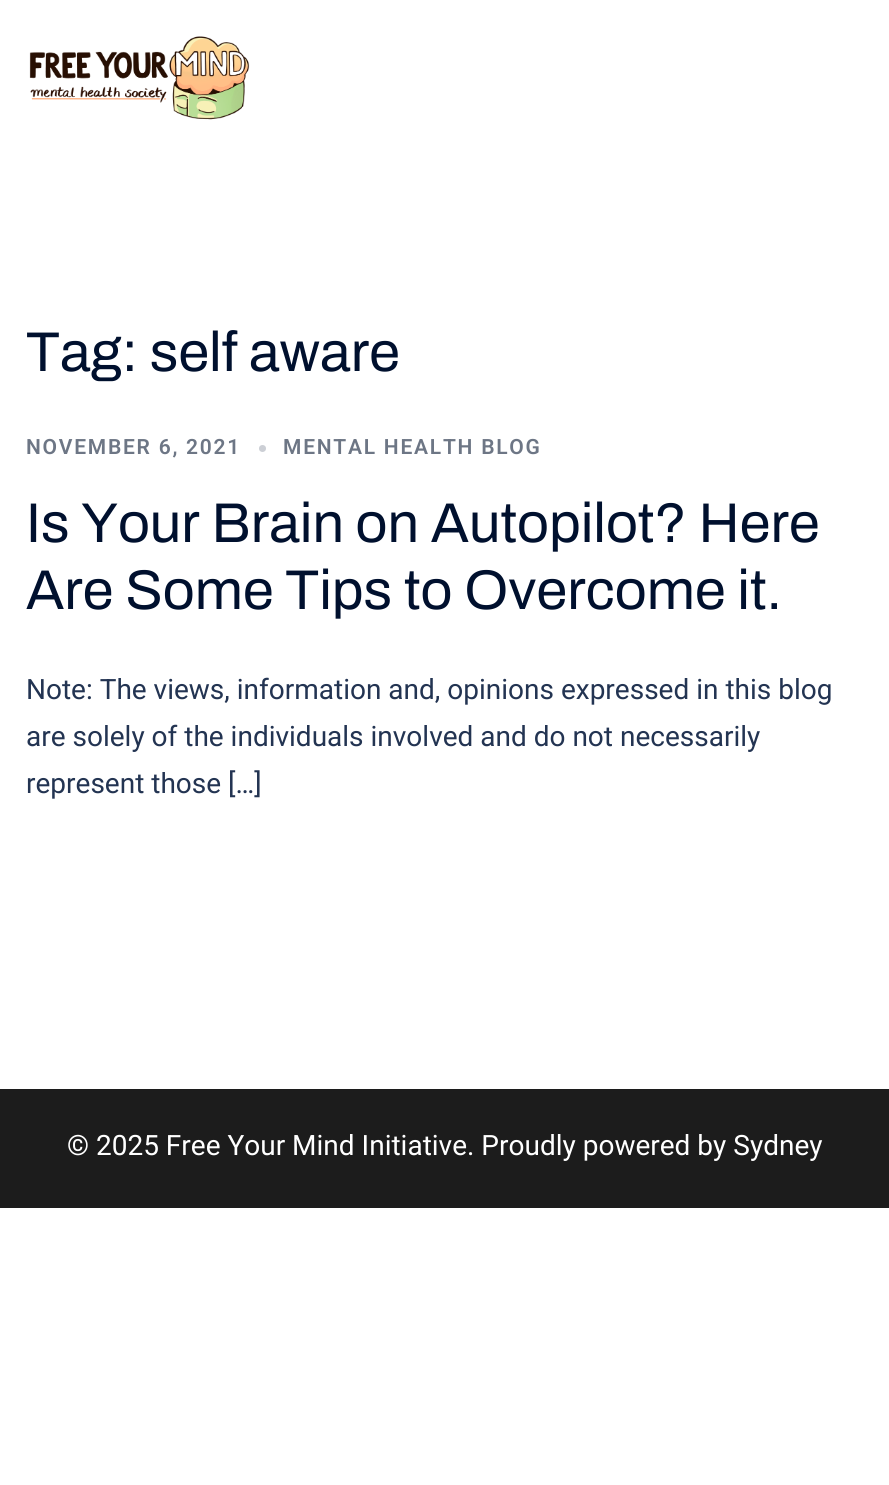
#include <cairo/cairo.h>
#include <math.h>
#include <stddef.h>


static void draw_spaced(cairo_t *cr, double x, double y, const char *s, double letter, double word) {
  cairo_move_to(cr, x, y);
  while (*s) {
    char ch[5] = {0};
    int n = 0;
    do ch[n++] = *s++; while ((*s & 0xC0) == 0x80);
    cairo_show_text(cr, ch);
    cairo_rel_move_to(cr, letter + word * (*ch == ' '), 0);
  }
}

static void draw_image(cairo_t *cr, const char *path, double x, double y, double w, double h) {
  cairo_surface_t *image = cairo_image_surface_create_from_png(path);
  cairo_save(cr);
  cairo_set_source_surface(cr, image, x, y);
  cairo_rectangle(cr, x, y, w, h);
  cairo_fill(cr);
  cairo_restore(cr);
  cairo_surface_destroy(image);
}

static void draw(cairo_t *cr) {
  cairo_set_source_rgb(cr, 1, 1, 1);
  cairo_paint(cr);
  draw_image(cr, "images/1.png", 29, 36, 221, 84);
  cairo_set_source_rgb(cr, 204 / 255.0, 207 / 255.0, 213 / 255.0);
  cairo_arc(cr, 262.5, 448.5, 3.5, 0, 2 * M_PI);
  cairo_fill(cr);
  cairo_set_source_rgb(cr, 28 / 255.0, 28 / 255.0, 28 / 255.0);
  cairo_rectangle(cr, 0, 1089, 889, 119);
  cairo_fill(cr);
  cairo_select_font_face(cr, "Archivo SemiBold", CAIRO_FONT_SLANT_NORMAL, CAIRO_FONT_WEIGHT_NORMAL);
  cairo_set_font_size(cr, 56);
  cairo_set_source_rgb(cr, 0, 16 / 255.0, 46 / 255.0);
  cairo_move_to(cr, 26, 371);
  cairo_show_text(cr, "Tag: self aware");
  cairo_select_font_face(cr, "Roboto SemiBold", CAIRO_FONT_SLANT_NORMAL, CAIRO_FONT_WEIGHT_NORMAL);
  cairo_set_font_size(cr, 21);
  cairo_set_source_rgb(cr, 109 / 255.0, 118 / 255.0, 133 / 255.0);
  draw_spaced(cr, 26, 454, "NOVEMBER 6, 2021", 1.75, 0);
  draw_spaced(cr, 283, 454, "MENTAL HEALTH BLOG", 1.75, 0);
  cairo_select_font_face(cr, "Archivo SemiBold", CAIRO_FONT_SLANT_NORMAL, CAIRO_FONT_WEIGHT_NORMAL);
  cairo_set_font_size(cr, 56);
  cairo_set_source_rgb(cr, 0, 16 / 255.0, 46 / 255.0);
  cairo_move_to(cr, 26, 542);
  cairo_show_text(cr, "Is Your Brain on Autopilot? Here");
  cairo_move_to(cr, 26, 609);
  cairo_show_text(cr, "Are Some Tips to Overcome it.");
  cairo_select_font_face(cr, "Roboto", CAIRO_FONT_SLANT_NORMAL, CAIRO_FONT_WEIGHT_NORMAL);
  cairo_set_font_size(cr, 28);
  cairo_set_source_rgb(cr, 35 / 255.0, 52 / 255.0, 82 / 255.0);
  cairo_move_to(cr, 26, 699);
  cairo_show_text(cr, "Note: The views, information and, opinions expressed in this blog");
  cairo_move_to(cr, 26, 746);
  cairo_show_text(cr, "are solely of the individuals involved and do not necessarily");
  cairo_move_to(cr, 26, 793);
  cairo_show_text(cr, "represent those […]");
  cairo_set_source_rgb(cr, 1, 1, 1);
  cairo_move_to(cr, 67, 1155);
  cairo_show_text(cr, "© 2025 Free Your Mind Initiative. Proudly powered by Sydney");
}

int main(void) {
  cairo_surface_t *surface = cairo_image_surface_create(CAIRO_FORMAT_RGB24, 889, 1485);
  cairo_t *cr = cairo_create(surface);
  cairo_font_options_t *options = cairo_font_options_create();
  cairo_font_options_set_hint_metrics(options, CAIRO_HINT_METRICS_OFF);
  cairo_font_options_set_hint_style(options, CAIRO_HINT_STYLE_NONE);
  cairo_set_font_options(cr, options);
  cairo_set_miter_limit(cr, 4);
  draw(cr);
  cairo_surface_write_to_png(surface, "out.png");
  cairo_font_options_destroy(options);
  cairo_destroy(cr);
  cairo_surface_destroy(surface);
  return 0;
}
